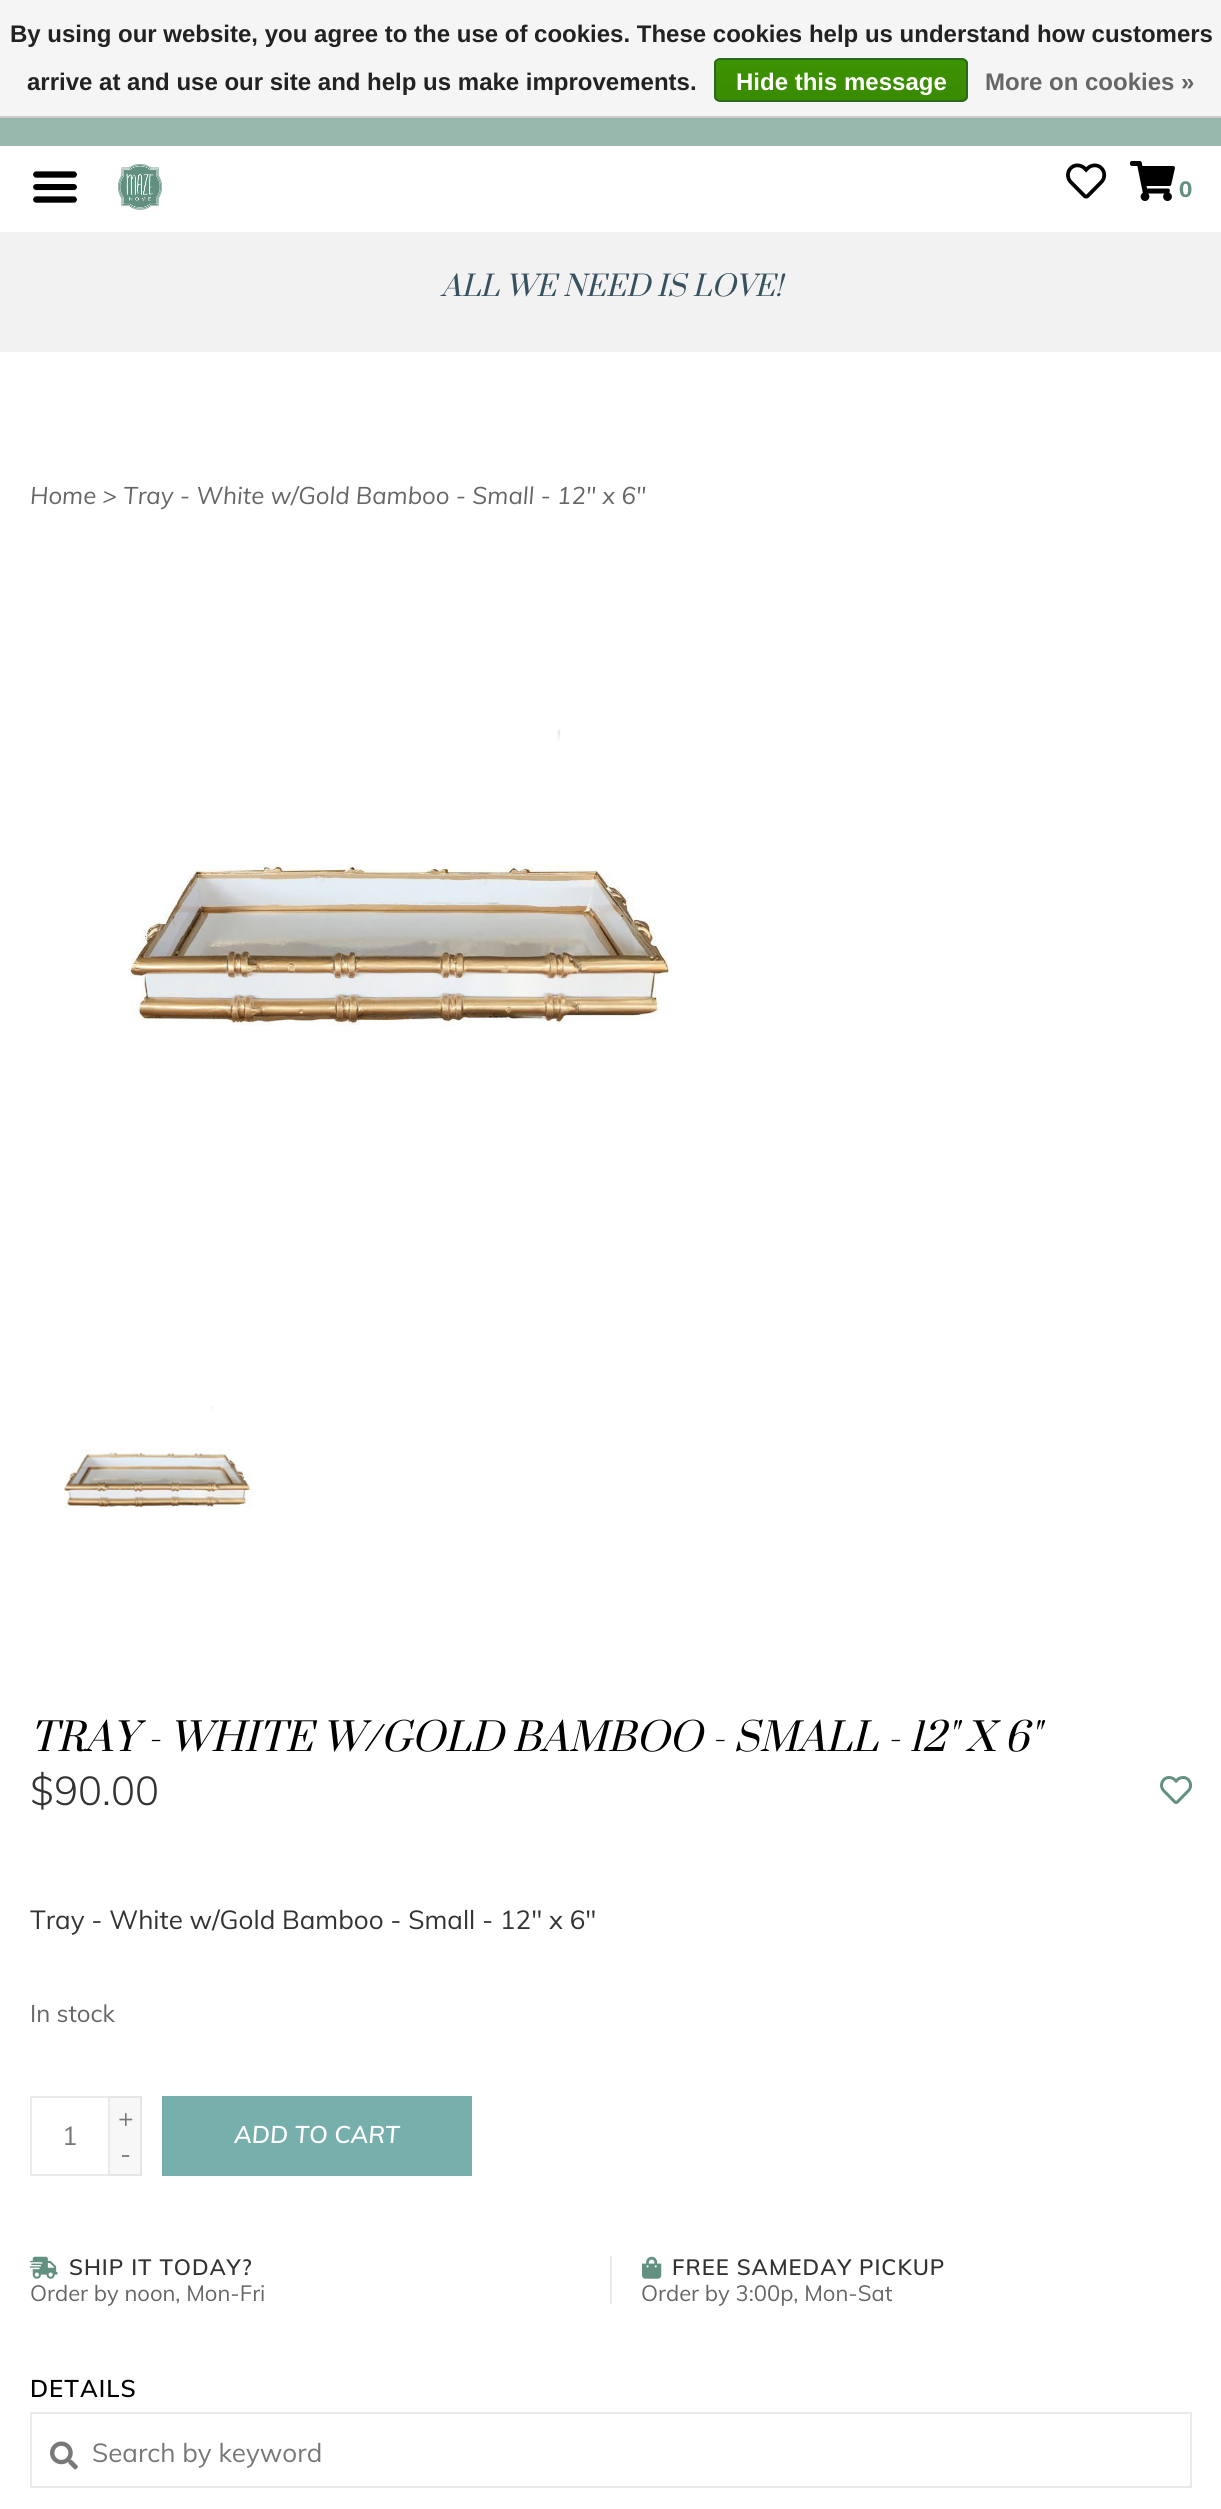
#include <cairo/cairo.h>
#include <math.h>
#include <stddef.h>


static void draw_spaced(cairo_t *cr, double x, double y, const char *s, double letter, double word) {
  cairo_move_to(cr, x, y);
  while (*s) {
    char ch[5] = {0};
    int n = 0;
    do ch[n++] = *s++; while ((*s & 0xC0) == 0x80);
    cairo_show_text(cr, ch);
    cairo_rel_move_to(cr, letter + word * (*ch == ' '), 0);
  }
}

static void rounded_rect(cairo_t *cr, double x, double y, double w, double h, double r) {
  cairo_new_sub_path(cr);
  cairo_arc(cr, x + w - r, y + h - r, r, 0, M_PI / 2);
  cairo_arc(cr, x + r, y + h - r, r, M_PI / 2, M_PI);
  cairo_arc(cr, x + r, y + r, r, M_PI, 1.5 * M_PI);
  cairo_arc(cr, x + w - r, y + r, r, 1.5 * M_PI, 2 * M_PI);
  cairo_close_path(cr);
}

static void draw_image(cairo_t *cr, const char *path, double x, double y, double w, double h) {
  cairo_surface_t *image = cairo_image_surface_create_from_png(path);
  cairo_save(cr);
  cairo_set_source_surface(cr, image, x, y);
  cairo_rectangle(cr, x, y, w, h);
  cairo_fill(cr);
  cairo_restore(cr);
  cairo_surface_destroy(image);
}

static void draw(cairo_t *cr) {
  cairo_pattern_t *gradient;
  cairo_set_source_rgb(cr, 1, 1, 1);
  cairo_paint(cr);
  cairo_set_source_rgb(cr, 245 / 255.0, 245 / 255.0, 245 / 255.0);
  cairo_rectangle(cr, 0, 0, 1221, 116);
  cairo_fill(cr);
  cairo_set_source_rgb(cr, 204 / 255.0, 204 / 255.0, 204 / 255.0);
  cairo_rectangle(cr, 0, 116, 1221, 2);
  cairo_fill(cr);
  cairo_save(cr);
  rounded_rect(cr, 714, 58, 254, 44, 6);
  cairo_clip(cr);
  gradient = cairo_pattern_create_linear(841, 60, 841, 100);
  cairo_pattern_add_color_stop_rgba(gradient, 0, 60 / 255.0, 147 / 255.0, 0, 1);
  cairo_pattern_add_color_stop_rgba(gradient, 1, 57 / 255.0, 138 / 255.0, 0, 1);
  cairo_set_source(cr, gradient);
  cairo_pattern_destroy(gradient);
  cairo_rectangle(cr, 714, 60, 254, 40);
  cairo_fill(cr);
  cairo_restore(cr);
  rounded_rect(cr, 715, 59, 252, 42, 5);
  cairo_set_source_rgb(cr, 41 / 255.0, 105 / 255.0, 29 / 255.0);
  cairo_stroke(cr);
  cairo_set_source_rgb(cr, 152 / 255.0, 183 / 255.0, 173 / 255.0);
  cairo_rectangle(cr, 0, 118, 1221, 28);
  cairo_fill(cr);
  draw_image(cr, "images/1.png", 33, 171, 44, 32);
  draw_image(cr, "images/2.png", 118, 164, 44, 46);
  draw_image(cr, "images/3.png", 1066, 163, 41, 36);
  draw_image(cr, "images/4.png", 1130, 161, 45, 40);
  cairo_set_source_rgb(cr, 242 / 255.0, 242 / 255.0, 242 / 255.0);
  cairo_rectangle(cr, 0, 232, 1221, 120);
  cairo_fill(cr);
  draw_image(cr, "images/5.png", 130, 729, 543, 303);
  draw_image(cr, "images/6.png", 64, 1406, 189, 102);
  draw_image(cr, "images/7.png", 1160, 1776, 33, 28);
  cairo_rectangle(cr, 31, 2097, 78, 78);
  cairo_set_source_rgb(cr, 234 / 255.0, 234 / 255.0, 234 / 255.0);
  cairo_stroke(cr);
  cairo_set_source_rgb(cr, 247 / 255.0, 247 / 255.0, 247 / 255.0);
  cairo_rectangle(cr, 110, 2098, 30, 76);
  cairo_fill(cr);
  cairo_set_source_rgb(cr, 229 / 255.0, 229 / 255.0, 229 / 255.0);
  cairo_rectangle(cr, 110, 2096, 32, 2);
  cairo_fill(cr);
  cairo_rectangle(cr, 140, 2096, 2, 80);
  cairo_fill(cr);
  cairo_rectangle(cr, 110, 2174, 32, 2);
  cairo_fill(cr);
  cairo_set_source_rgb(cr, 119 / 255.0, 175 / 255.0, 172 / 255.0);
  cairo_rectangle(cr, 162, 2096, 310, 80);
  cairo_fill(cr);
  cairo_set_source_rgb(cr, 234 / 255.0, 234 / 255.0, 234 / 255.0);
  cairo_rectangle(cr, 610, 2256, 2, 48);
  cairo_fill(cr);
  draw_image(cr, "images/8.png", 30, 2256, 28, 23);
  draw_image(cr, "images/9.png", 642, 2256, 20, 23);
  cairo_rectangle(cr, 31, 2413, 1160, 74);
  cairo_stroke(cr);
  draw_image(cr, "images/10.png", 50, 2441, 28, 29);
  cairo_select_font_face(cr, "Liberation Sans", CAIRO_FONT_SLANT_NORMAL, CAIRO_FONT_WEIGHT_BOLD);
  cairo_set_font_size(cr, 24);
  cairo_set_source_rgb(cr, 34 / 255.0, 34 / 255.0, 34 / 255.0);
  cairo_move_to(cr, 10, 42);
  cairo_show_text(cr, "By using our website, you agree to the use of cookies. These cookies help us understand how customers");
  cairo_move_to(cr, 27, 90);
  cairo_show_text(cr, "arrive at and use our site and help us make improvements.");
  cairo_set_source_rgb(cr, 1, 1, 1);
  cairo_move_to(cr, 736, 90);
  cairo_show_text(cr, "Hide this message");
  cairo_set_source_rgb(cr, 102 / 255.0, 102 / 255.0, 102 / 255.0);
  cairo_move_to(cr, 985, 90);
  cairo_show_text(cr, "More on cookies »");
  cairo_select_font_face(cr, "Muli ExtraBold", CAIRO_FONT_SLANT_NORMAL, CAIRO_FONT_WEIGHT_NORMAL);
  cairo_set_font_size(cr, 22);
  cairo_set_source_rgb(cr, 98 / 255.0, 145 / 255.0, 129 / 255.0);
  cairo_move_to(cr, 1179, 197);
  cairo_show_text(cr, "0");
  cairo_select_font_face(cr, "Prata", CAIRO_FONT_SLANT_ITALIC, CAIRO_FONT_WEIGHT_NORMAL);
  cairo_set_font_size(cr, 28);
  cairo_set_source_rgb(cr, 55 / 255.0, 81 / 255.0, 95 / 255.0);
  cairo_move_to(cr, 441, 296);
  cairo_show_text(cr, "ALL WE NEED IS LOVE!");
  cairo_select_font_face(cr, "Muli", CAIRO_FONT_SLANT_ITALIC, CAIRO_FONT_WEIGHT_NORMAL);
  cairo_set_font_size(cr, 24);
  cairo_set_source_rgb(cr, 102 / 255.0, 102 / 255.0, 102 / 255.0);
  cairo_move_to(cr, 30, 504);
  cairo_show_text(cr, "Home > Tray - White w/Gold Bamboo - Small - 12\" x 6\"");
  cairo_select_font_face(cr, "Prata", CAIRO_FONT_SLANT_ITALIC, CAIRO_FONT_WEIGHT_NORMAL);
  cairo_set_font_size(cr, 38.35);
  cairo_set_source_rgb(cr, 0, 0, 0);
  cairo_move_to(cr, 30, 1751);
  cairo_show_text(cr, "TRAY - WHITE W/GOLD BAMBOO - SMALL - 12\" X 6\"");
  cairo_select_font_face(cr, "Muli Light", CAIRO_FONT_SLANT_NORMAL, CAIRO_FONT_WEIGHT_NORMAL);
  cairo_set_font_size(cr, 40);
  cairo_set_source_rgb(cr, 51 / 255.0, 51 / 255.0, 51 / 255.0);
  cairo_move_to(cr, 30, 1805);
  cairo_show_text(cr, "$90.00");
  cairo_select_font_face(cr, "Muli", CAIRO_FONT_SLANT_NORMAL, CAIRO_FONT_WEIGHT_NORMAL);
  cairo_set_font_size(cr, 26);
  cairo_move_to(cr, 30, 1929);
  cairo_show_text(cr, "Tray - White w/Gold Bamboo - Small - 12\" x 6\"");
  cairo_set_font_size(cr, 24);
  cairo_set_source_rgb(cr, 102 / 255.0, 102 / 255.0, 102 / 255.0);
  cairo_move_to(cr, 30, 2022);
  cairo_show_text(cr, "In stock");
  cairo_set_font_size(cr, 26);
  cairo_set_source_rgb(cr, 119 / 255.0, 119 / 255.0, 119 / 255.0);
  cairo_move_to(cr, 62, 2145);
  cairo_show_text(cr, "1");
  cairo_move_to(cr, 118, 2127);
  cairo_show_text(cr, "+");
  cairo_move_to(cr, 120, 2163);
  cairo_show_text(cr, "-");
  cairo_select_font_face(cr, "Muli SemiBold", CAIRO_FONT_SLANT_ITALIC, CAIRO_FONT_WEIGHT_NORMAL);
  cairo_set_font_size(cr, 24);
  cairo_set_source_rgb(cr, 1, 1, 1);
  cairo_move_to(cr, 234, 2143);
  cairo_show_text(cr, "ADD TO CART");
  cairo_select_font_face(cr, "Muli SemiBold", CAIRO_FONT_SLANT_NORMAL, CAIRO_FONT_WEIGHT_NORMAL);
  cairo_set_font_size(cr, 22);
  cairo_set_source_rgb(cr, 51 / 255.0, 51 / 255.0, 51 / 255.0);
  draw_spaced(cr, 69, 2275, "SHIP IT TODAY?", 1, 0);
  cairo_select_font_face(cr, "Muli", CAIRO_FONT_SLANT_NORMAL, CAIRO_FONT_WEIGHT_NORMAL);
  cairo_set_source_rgb(cr, 102 / 255.0, 102 / 255.0, 102 / 255.0);
  cairo_move_to(cr, 30, 2301);
  cairo_show_text(cr, "Order by noon, Mon-Fri");
  cairo_select_font_face(cr, "Muli SemiBold", CAIRO_FONT_SLANT_NORMAL, CAIRO_FONT_WEIGHT_NORMAL);
  cairo_set_source_rgb(cr, 51 / 255.0, 51 / 255.0, 51 / 255.0);
  draw_spaced(cr, 672, 2275, "FREE SAMEDAY PICKUP", 1, 0);
  cairo_select_font_face(cr, "Muli", CAIRO_FONT_SLANT_NORMAL, CAIRO_FONT_WEIGHT_NORMAL);
  cairo_set_source_rgb(cr, 102 / 255.0, 102 / 255.0, 102 / 255.0);
  cairo_move_to(cr, 641, 2301);
  cairo_show_text(cr, "Order by 3:00p, Mon-Sat");
  cairo_select_font_face(cr, "Muli SemiBold", CAIRO_FONT_SLANT_NORMAL, CAIRO_FONT_WEIGHT_NORMAL);
  cairo_set_font_size(cr, 24);
  cairo_set_source_rgb(cr, 0, 0, 0);
  draw_spaced(cr, 30, 2397, "DETAILS", 1, 0);
  cairo_select_font_face(cr, "Muli", CAIRO_FONT_SLANT_NORMAL, CAIRO_FONT_WEIGHT_NORMAL);
  cairo_set_font_size(cr, 26);
  cairo_set_source_rgb(cr, 119 / 255.0, 119 / 255.0, 119 / 255.0);
  cairo_move_to(cr, 92, 2462);
  cairo_show_text(cr, "Search by keyword");
}

int main(void) {
  cairo_surface_t *surface = cairo_image_surface_create(CAIRO_FORMAT_RGB24, 1221, 2509);
  cairo_t *cr = cairo_create(surface);
  cairo_font_options_t *options = cairo_font_options_create();
  cairo_font_options_set_hint_metrics(options, CAIRO_HINT_METRICS_OFF);
  cairo_font_options_set_hint_style(options, CAIRO_HINT_STYLE_NONE);
  cairo_set_font_options(cr, options);
  cairo_set_miter_limit(cr, 4);
  draw(cr);
  cairo_surface_write_to_png(surface, "out.png");
  cairo_font_options_destroy(options);
  cairo_destroy(cr);
  cairo_surface_destroy(surface);
  return 0;
}
